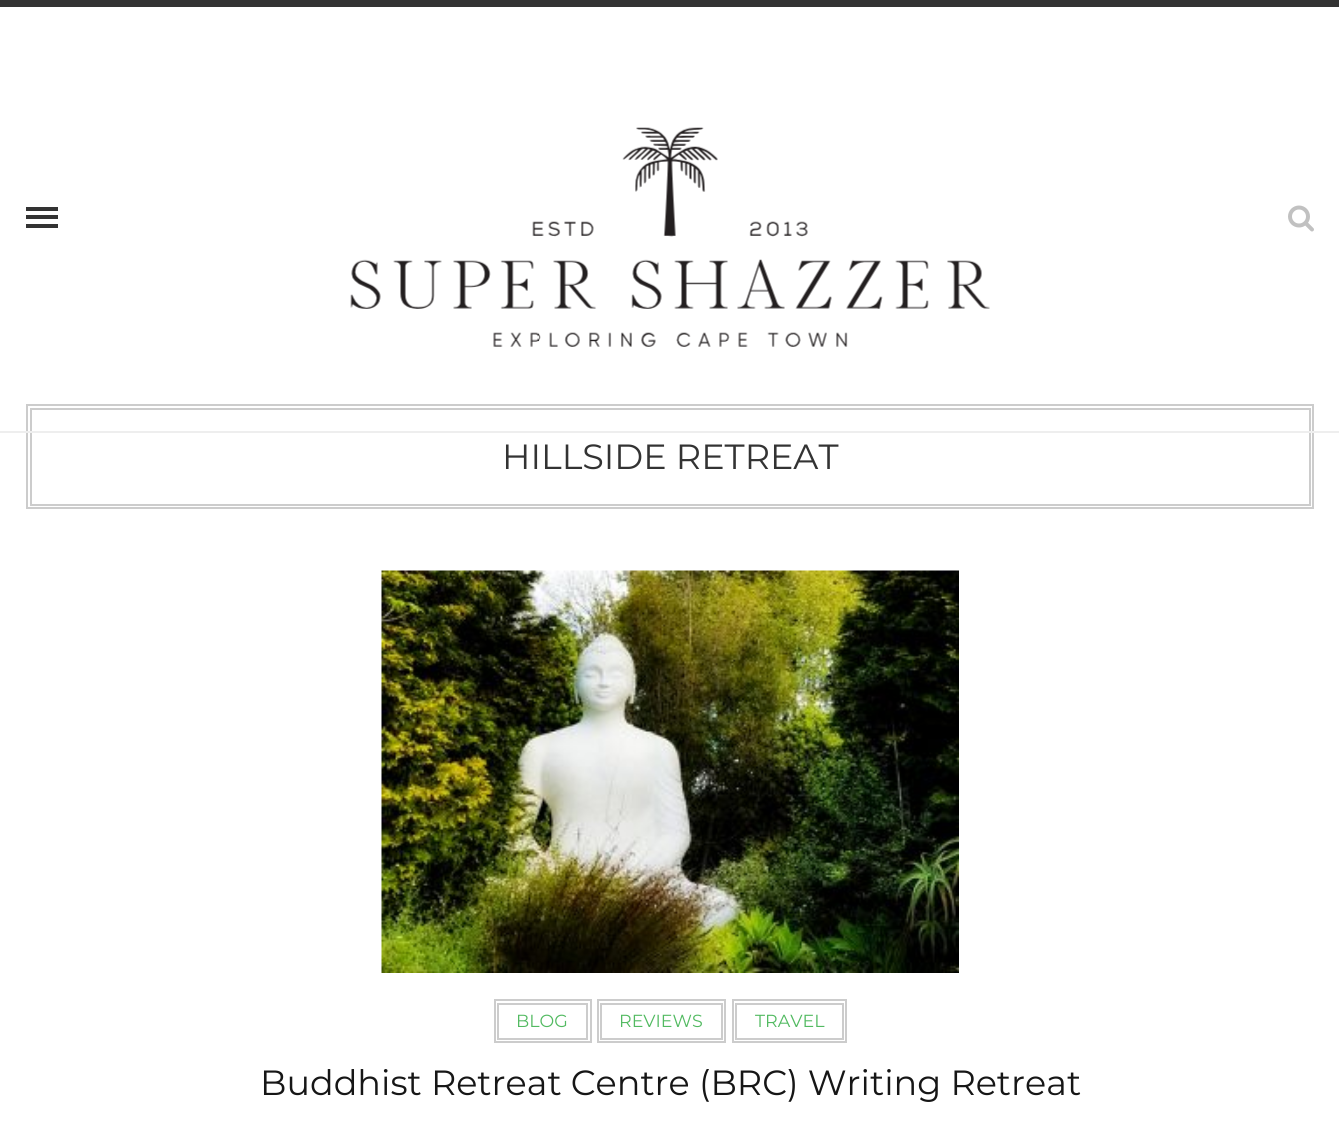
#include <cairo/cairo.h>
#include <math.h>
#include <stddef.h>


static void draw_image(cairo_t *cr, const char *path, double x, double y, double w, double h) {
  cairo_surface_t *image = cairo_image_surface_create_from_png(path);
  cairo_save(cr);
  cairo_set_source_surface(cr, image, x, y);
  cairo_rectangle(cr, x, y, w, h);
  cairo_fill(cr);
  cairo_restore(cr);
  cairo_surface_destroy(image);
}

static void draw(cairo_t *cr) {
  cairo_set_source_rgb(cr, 1, 1, 1);
  cairo_paint(cr);
  cairo_set_source_rgb(cr, 51 / 255.0, 51 / 255.0, 51 / 255.0);
  cairo_rectangle(cr, 0, 0, 1339, 7);
  cairo_fill(cr);
  cairo_rectangle(cr, 27, 405, 1286, 103);
  cairo_set_source_rgb(cr, 204 / 255.0, 204 / 255.0, 204 / 255.0);
  cairo_stroke(cr);
  cairo_rectangle(cr, 31, 409, 1279, 96);
  cairo_stroke(cr);
  cairo_set_source_rgb(cr, 238 / 255.0, 238 / 255.0, 238 / 255.0);
  cairo_rectangle(cr, 0, 431, 1339, 2);
  cairo_fill(cr);
  cairo_set_source_rgb(cr, 51 / 255.0, 51 / 255.0, 51 / 255.0);
  cairo_rectangle(cr, 26, 207, 32, 4);
  cairo_fill(cr);
  cairo_rectangle(cr, 26, 215, 32, 4);
  cairo_fill(cr);
  cairo_rectangle(cr, 26, 224, 32, 4);
  cairo_fill(cr);
  draw_image(cr, "images/1.png", 350, 127, 640, 220);
  draw_image(cr, "images/2.png", 1288, 205, 26, 27);
  draw_image(cr, "images/3.png", 381, 570, 578, 403);
  cairo_rectangle(cr, 495, 1000, 96, 42);
  cairo_set_source_rgb(cr, 204 / 255.0, 204 / 255.0, 204 / 255.0);
  cairo_stroke(cr);
  cairo_rectangle(cr, 498, 1004, 89, 35);
  cairo_stroke(cr);
  cairo_rectangle(cr, 598, 1000, 127, 42);
  cairo_stroke(cr);
  cairo_rectangle(cr, 601, 1004, 121, 35);
  cairo_stroke(cr);
  cairo_rectangle(cr, 733, 1000, 113, 42);
  cairo_stroke(cr);
  cairo_rectangle(cr, 736, 1004, 107, 35);
  cairo_stroke(cr);
  cairo_select_font_face(cr, "Montserrat Thin", CAIRO_FONT_SLANT_NORMAL, CAIRO_FONT_WEIGHT_NORMAL);
  cairo_set_font_size(cr, 35);
  cairo_set_source_rgb(cr, 51 / 255.0, 51 / 255.0, 51 / 255.0);
  cairo_move_to(cr, 502, 469);
  cairo_show_text(cr, "HILLSIDE RETREAT");
  cairo_set_font_size(cr, 17.5);
  cairo_set_source_rgb(cr, 82 / 255.0, 186 / 255.0, 97 / 255.0);
  cairo_move_to(cr, 516, 1027);
  cairo_show_text(cr, "BLOG");
  cairo_move_to(cr, 619, 1027);
  cairo_show_text(cr, "REVIEWS");
  cairo_move_to(cr, 755, 1027);
  cairo_show_text(cr, "TRAVEL");
  cairo_set_font_size(cr, 35);
  cairo_set_source_rgb(cr, 22 / 255.0, 22 / 255.0, 22 / 255.0);
  cairo_move_to(cr, 260, 1095);
  cairo_show_text(cr, "Buddhist Retreat Centre (BRC) Writing Retreat");
}

int main(void) {
  cairo_surface_t *surface = cairo_image_surface_create(CAIRO_FORMAT_RGB24, 1339, 1126);
  cairo_t *cr = cairo_create(surface);
  cairo_font_options_t *options = cairo_font_options_create();
  cairo_font_options_set_hint_metrics(options, CAIRO_HINT_METRICS_OFF);
  cairo_font_options_set_hint_style(options, CAIRO_HINT_STYLE_NONE);
  cairo_set_font_options(cr, options);
  cairo_set_miter_limit(cr, 4);
  draw(cr);
  cairo_surface_write_to_png(surface, "out.png");
  cairo_font_options_destroy(options);
  cairo_destroy(cr);
  cairo_surface_destroy(surface);
  return 0;
}
